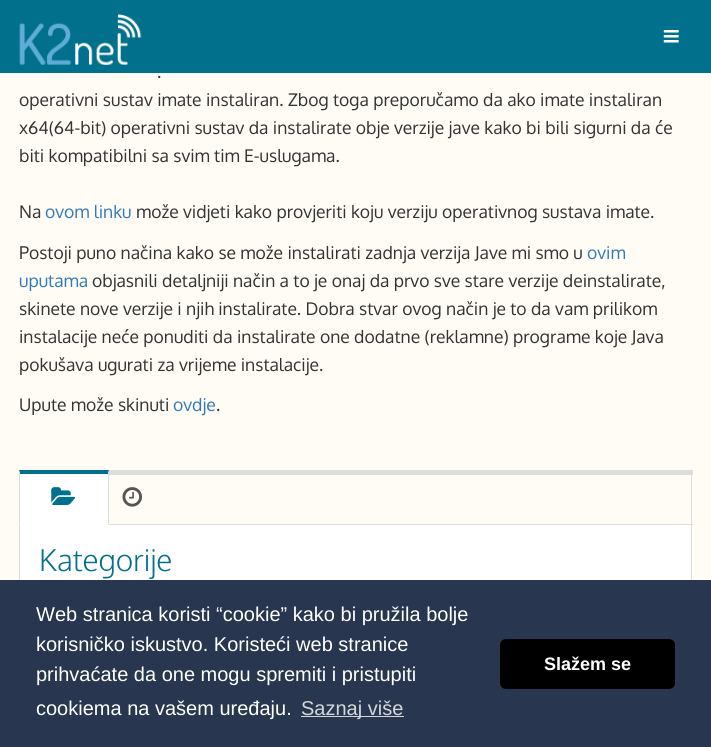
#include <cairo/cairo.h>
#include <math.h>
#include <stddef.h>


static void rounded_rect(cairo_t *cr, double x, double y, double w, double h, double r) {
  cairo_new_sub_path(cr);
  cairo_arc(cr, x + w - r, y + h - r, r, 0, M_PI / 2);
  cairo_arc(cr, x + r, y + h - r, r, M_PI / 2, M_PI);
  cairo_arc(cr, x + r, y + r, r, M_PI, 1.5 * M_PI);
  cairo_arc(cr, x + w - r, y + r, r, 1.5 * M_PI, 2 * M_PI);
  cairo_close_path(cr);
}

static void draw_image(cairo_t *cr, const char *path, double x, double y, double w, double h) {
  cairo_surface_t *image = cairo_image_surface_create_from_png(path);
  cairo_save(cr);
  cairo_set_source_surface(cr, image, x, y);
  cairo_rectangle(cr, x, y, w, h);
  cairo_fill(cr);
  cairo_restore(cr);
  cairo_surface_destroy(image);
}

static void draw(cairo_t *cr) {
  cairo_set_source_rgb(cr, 254 / 255.0, 252 / 255.0, 245 / 255.0);
  cairo_paint(cr);
  cairo_set_source_rgb(cr, 0, 112 / 255.0, 140 / 255.0);
  cairo_rectangle(cr, 0, 0, 711, 73);
  cairo_fill(cr);
  draw_image(cr, "images/1.png", 19, 14, 123, 51);
  draw_image(cr, "images/2.png", 663, 30, 16, 13);
  cairo_set_source_rgb(cr, 221 / 255.0, 221 / 255.0, 221 / 255.0);
  cairo_rectangle(cr, 109, 470, 584, 5);
  cairo_fill(cr);
  cairo_rectangle(cr, 691, 470, 1, 55);
  cairo_fill(cr);
  cairo_rectangle(cr, 109, 524, 584, 1);
  cairo_fill(cr);
  cairo_set_source_rgb(cr, 1, 1, 1);
  cairo_rectangle(cr, 19, 470, 90, 55);
  cairo_fill(cr);
  cairo_set_source_rgb(cr, 0, 112 / 255.0, 140 / 255.0);
  cairo_new_path(cr);
  cairo_move_to(cr, 19, 470);
  cairo_line_to(cr, 109, 470);
  cairo_line_to(cr, 108, 474);
  cairo_line_to(cr, 20, 474);
  cairo_close_path(cr);
  cairo_fill(cr);
  cairo_set_source_rgb(cr, 221 / 255.0, 221 / 255.0, 221 / 255.0);
  cairo_new_path(cr);
  cairo_move_to(cr, 109, 470);
  cairo_line_to(cr, 109, 525);
  cairo_line_to(cr, 108, 524);
  cairo_line_to(cr, 108, 474);
  cairo_close_path(cr);
  cairo_fill(cr);
  cairo_new_path(cr);
  cairo_move_to(cr, 19, 525);
  cairo_line_to(cr, 19, 470);
  cairo_line_to(cr, 20, 474);
  cairo_line_to(cr, 20, 524);
  cairo_close_path(cr);
  cairo_fill(cr);
  draw_image(cr, "images/3.png", 51, 487, 25, 18);
  draw_image(cr, "images/4.png", 122, 487, 20, 20);
  cairo_set_source_rgb(cr, 1, 1, 1);
  cairo_rectangle(cr, 20, 525, 673, 55);
  cairo_fill(cr);
  cairo_set_source_rgb(cr, 221 / 255.0, 221 / 255.0, 221 / 255.0);
  cairo_rectangle(cr, 691, 525, 1, 55);
  cairo_fill(cr);
  cairo_rectangle(cr, 19, 525, 1, 55);
  cairo_fill(cr);
  cairo_set_source_rgb(cr, 40 / 255.0, 54 / 255.0, 79 / 255.0);
  cairo_rectangle(cr, 0, 580, 711, 167);
  cairo_fill(cr);
  cairo_set_source_rgb(cr, 212 / 255.0, 215 / 255.0, 220 / 255.0);
  cairo_rectangle(cr, 301, 716, 103, 1);
  cairo_fill(cr);
  cairo_set_source_rgb(cr, 0, 0, 0);
  rounded_rect(cr, 500, 639, 175, 50, 6);
  cairo_fill(cr);
  cairo_select_font_face(cr, "Oxygen", CAIRO_FONT_SLANT_NORMAL, CAIRO_FONT_WEIGHT_NORMAL);
  cairo_set_font_size(cr, 17.5);
  cairo_set_source_rgb(cr, 51 / 255.0, 51 / 255.0, 51 / 255.0);
  cairo_move_to(cr, 157, 78);
  cairo_show_text(cr, ".");
  cairo_move_to(cr, 19, 106);
  cairo_show_text(cr, "operativni sustav imate instaliran. Zbog toga preporučamo da ako imate instaliran");
  cairo_move_to(cr, 19, 134);
  cairo_show_text(cr, "x64(64-bit) operativni sustav da instalirate obje verzije jave kako bi bili sigurni da će");
  cairo_move_to(cr, 19, 162);
  cairo_show_text(cr, "biti kompatibilni sa svim tim E-uslugama.");
  cairo_move_to(cr, 19, 218);
  cairo_show_text(cr, "Na");
  cairo_set_source_rgb(cr, 51 / 255.0, 122 / 255.0, 183 / 255.0);
  cairo_move_to(cr, 45, 218);
  cairo_show_text(cr, "ovom linku");
  cairo_set_source_rgb(cr, 51 / 255.0, 51 / 255.0, 51 / 255.0);
  cairo_move_to(cr, 136, 218);
  cairo_show_text(cr, "može vidjeti kako provjeriti koju verziju operativnog sustava imate.");
  cairo_move_to(cr, 19, 259);
  cairo_show_text(cr, "Postoji puno načina kako se može instalirati zadnja verzija Jave mi smo u");
  cairo_set_source_rgb(cr, 51 / 255.0, 122 / 255.0, 183 / 255.0);
  cairo_move_to(cr, 587, 259);
  cairo_show_text(cr, "ovim");
  cairo_move_to(cr, 19, 287);
  cairo_show_text(cr, "uputama");
  cairo_set_source_rgb(cr, 51 / 255.0, 51 / 255.0, 51 / 255.0);
  cairo_move_to(cr, 92, 287);
  cairo_show_text(cr, "objasnili detaljniji način a to je onaj da prvo sve stare verzije deinstalirate,");
  cairo_move_to(cr, 19, 315);
  cairo_show_text(cr, "skinete nove verzije i njih instalirate. Dobra stvar ovog način je to da vam prilikom");
  cairo_move_to(cr, 19, 343);
  cairo_show_text(cr, "instalacije neće ponuditi da instalirate one dodatne (reklamne) programe koje Java");
  cairo_move_to(cr, 19, 371);
  cairo_show_text(cr, "pokušava ugurati za vrijeme instalacije.");
  cairo_move_to(cr, 19, 411);
  cairo_show_text(cr, "Upute može skinuti");
  cairo_set_source_rgb(cr, 51 / 255.0, 122 / 255.0, 183 / 255.0);
  cairo_move_to(cr, 173, 411);
  cairo_show_text(cr, "ovdje");
  cairo_set_source_rgb(cr, 51 / 255.0, 51 / 255.0, 51 / 255.0);
  cairo_move_to(cr, 216, 411);
  cairo_show_text(cr, ".");
  cairo_select_font_face(cr, "Oxygen Light", CAIRO_FONT_SLANT_NORMAL, CAIRO_FONT_WEIGHT_NORMAL);
  cairo_set_font_size(cr, 30);
  cairo_set_source_rgb(cr, 0, 112 / 255.0, 140 / 255.0);
  cairo_move_to(cr, 39, 571);
  cairo_show_text(cr, "Kategorije");
  cairo_select_font_face(cr, "Liberation Sans", CAIRO_FONT_SLANT_NORMAL, CAIRO_FONT_WEIGHT_NORMAL);
  cairo_set_font_size(cr, 20);
  cairo_set_source_rgb(cr, 1, 1, 1);
  cairo_move_to(cr, 36, 621);
  cairo_show_text(cr, "Web stranica koristi “cookie” kako bi pružila bolje");
  cairo_move_to(cr, 36, 651);
  cairo_show_text(cr, "korisničko iskustvo. Koristeći web stranice");
  cairo_move_to(cr, 36, 681);
  cairo_show_text(cr, "prihvaćate da one mogu spremiti i pristupiti");
  cairo_move_to(cr, 36, 715);
  cairo_show_text(cr, "cookiema na vašem uređaju.");
  cairo_set_source_rgb(cr, 212 / 255.0, 215 / 255.0, 220 / 255.0);
  cairo_move_to(cr, 301, 715);
  cairo_show_text(cr, "Saznaj više");
  cairo_select_font_face(cr, "Liberation Sans", CAIRO_FONT_SLANT_NORMAL, CAIRO_FONT_WEIGHT_BOLD);
  cairo_set_font_size(cr, 18);
  cairo_set_source_rgb(cr, 1, 1, 1);
  cairo_move_to(cr, 544, 670);
  cairo_show_text(cr, "Slažem se");
}

int main(void) {
  cairo_surface_t *surface = cairo_image_surface_create(CAIRO_FORMAT_RGB24, 711, 747);
  cairo_t *cr = cairo_create(surface);
  cairo_font_options_t *options = cairo_font_options_create();
  cairo_font_options_set_hint_metrics(options, CAIRO_HINT_METRICS_OFF);
  cairo_font_options_set_hint_style(options, CAIRO_HINT_STYLE_NONE);
  cairo_set_font_options(cr, options);
  cairo_set_miter_limit(cr, 4);
  draw(cr);
  cairo_surface_write_to_png(surface, "out.png");
  cairo_font_options_destroy(options);
  cairo_destroy(cr);
  cairo_surface_destroy(surface);
  return 0;
}
